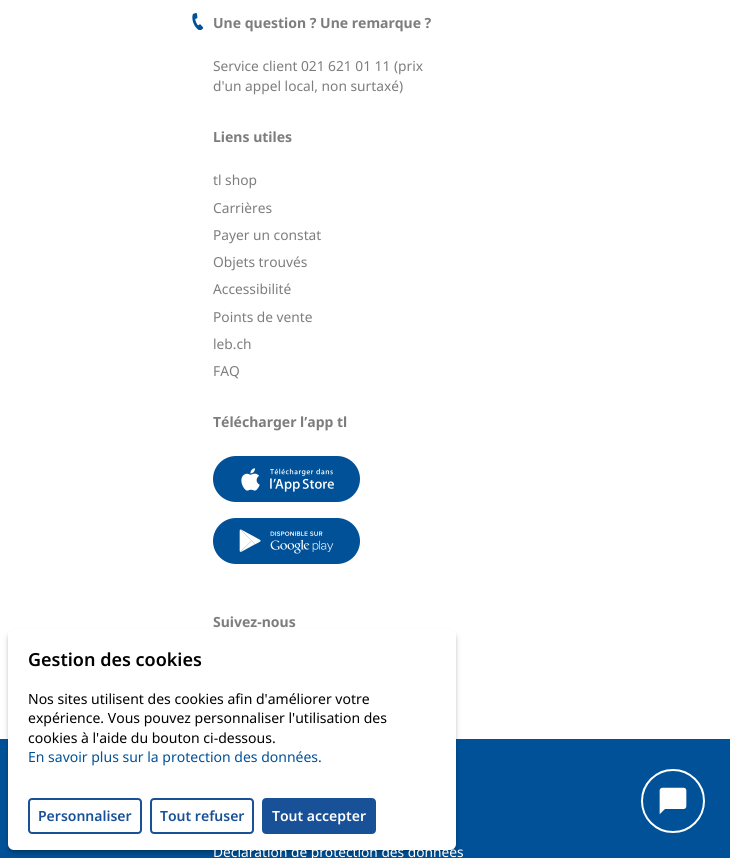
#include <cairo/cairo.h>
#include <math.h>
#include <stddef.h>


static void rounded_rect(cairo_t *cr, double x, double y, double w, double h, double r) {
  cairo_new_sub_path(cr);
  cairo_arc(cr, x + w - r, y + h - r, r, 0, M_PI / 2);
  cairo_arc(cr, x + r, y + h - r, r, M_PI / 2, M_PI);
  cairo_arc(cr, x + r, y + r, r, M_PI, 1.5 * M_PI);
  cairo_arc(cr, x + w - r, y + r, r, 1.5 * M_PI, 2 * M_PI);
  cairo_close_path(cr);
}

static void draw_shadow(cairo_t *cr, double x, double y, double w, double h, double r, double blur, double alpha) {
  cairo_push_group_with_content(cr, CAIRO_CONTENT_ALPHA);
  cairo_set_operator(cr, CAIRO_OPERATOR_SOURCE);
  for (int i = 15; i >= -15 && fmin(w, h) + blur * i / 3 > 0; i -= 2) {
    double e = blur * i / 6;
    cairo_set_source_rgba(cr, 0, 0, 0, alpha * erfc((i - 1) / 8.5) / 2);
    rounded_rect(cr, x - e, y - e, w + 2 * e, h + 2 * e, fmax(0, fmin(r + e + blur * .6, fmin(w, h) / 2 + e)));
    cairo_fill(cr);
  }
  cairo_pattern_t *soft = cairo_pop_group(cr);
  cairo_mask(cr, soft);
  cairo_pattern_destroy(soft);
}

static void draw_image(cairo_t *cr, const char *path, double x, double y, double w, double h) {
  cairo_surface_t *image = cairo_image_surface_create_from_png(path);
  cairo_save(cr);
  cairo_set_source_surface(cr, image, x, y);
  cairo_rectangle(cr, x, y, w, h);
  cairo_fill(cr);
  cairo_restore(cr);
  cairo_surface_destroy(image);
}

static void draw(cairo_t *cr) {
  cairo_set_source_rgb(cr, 1, 1, 1);
  cairo_paint(cr);
  draw_image(cr, "images/1.png", 192, 13, 12, 17);
  cairo_set_source_rgb(cr, 0, 81 / 255.0, 152 / 255.0);
  rounded_rect(cr, 214, 457, 145, 44, 22);
  cairo_fill_preserve(cr);
  cairo_stroke(cr);
  draw_image(cr, "images/2.png", 241, 468, 19, 23);
  draw_image(cr, "images/3.png", 270, 468, 64, 24);
  rounded_rect(cr, 214, 519, 145, 44, 22);
  cairo_fill_preserve(cr);
  cairo_stroke(cr);
  draw_image(cr, "images/4.png", 239, 529, 22, 23);
  draw_image(cr, "images/5.png", 270, 531, 64, 23);
  cairo_rectangle(cr, 0, 739, 730, 119);
  cairo_fill(cr);
  cairo_set_source_rgb(cr, 0, 0, 0);
  draw_shadow(cr, 10, 633, 444, 217, 4, 2, 0.25);
  draw_shadow(cr, 9, 634, 446, 219, 5, 3, 0.25);
  cairo_set_source_rgb(cr, 1, 1, 1);
  rounded_rect(cr, 8, 629, 448, 221, 6);
  cairo_fill(cr);
  rounded_rect(cr, 29, 799, 112, 34, 3);
  cairo_set_source_rgb(cr, 24 / 255.0, 81 / 255.0, 152 / 255.0);
  cairo_stroke(cr);
  rounded_rect(cr, 151, 799, 102, 34, 3);
  cairo_stroke(cr);
  rounded_rect(cr, 263, 799, 112, 34, 3);
  cairo_fill_preserve(cr);
  cairo_stroke(cr);
  draw_image(cr, "images/6.png", 641, 769, 64, 64);
  cairo_select_font_face(cr, "Noto Sans", CAIRO_FONT_SLANT_NORMAL, CAIRO_FONT_WEIGHT_BOLD);
  cairo_set_font_size(cr, 14);
  cairo_set_source_rgb(cr, 125 / 255.0, 125 / 255.0, 125 / 255.0);
  cairo_move_to(cr, 213, 28);
  cairo_show_text(cr, "Une question ? Une remarque ?");
  cairo_select_font_face(cr, "Noto Sans", CAIRO_FONT_SLANT_NORMAL, CAIRO_FONT_WEIGHT_NORMAL);
  cairo_set_font_size(cr, 13.75);
  cairo_move_to(cr, 213, 71);
  cairo_show_text(cr, "Service client 021 621 01 11 (prix");
  cairo_move_to(cr, 213, 91);
  cairo_show_text(cr, "d'un appel local, non surtaxé)");
  cairo_select_font_face(cr, "Noto Sans", CAIRO_FONT_SLANT_NORMAL, CAIRO_FONT_WEIGHT_BOLD);
  cairo_set_font_size(cr, 14);
  cairo_move_to(cr, 213, 142);
  cairo_show_text(cr, "Liens utiles");
  cairo_select_font_face(cr, "Noto Sans", CAIRO_FONT_SLANT_NORMAL, CAIRO_FONT_WEIGHT_NORMAL);
  cairo_set_font_size(cr, 13.75);
  cairo_move_to(cr, 213, 185);
  cairo_show_text(cr, "tl shop");
  cairo_move_to(cr, 213, 213);
  cairo_show_text(cr, "Carrières");
  cairo_move_to(cr, 213, 240);
  cairo_show_text(cr, "Payer un constat");
  cairo_move_to(cr, 213, 267);
  cairo_show_text(cr, "Objets trouvés");
  cairo_move_to(cr, 213, 294);
  cairo_show_text(cr, "Accessibilité");
  cairo_move_to(cr, 213, 322);
  cairo_show_text(cr, "Points de vente");
  cairo_move_to(cr, 213, 349);
  cairo_show_text(cr, "leb.ch");
  cairo_move_to(cr, 213, 376);
  cairo_show_text(cr, "FAQ");
  cairo_select_font_face(cr, "Noto Sans", CAIRO_FONT_SLANT_NORMAL, CAIRO_FONT_WEIGHT_BOLD);
  cairo_set_font_size(cr, 14);
  cairo_move_to(cr, 213, 427);
  cairo_show_text(cr, "Télécharger l’app tl");
  cairo_move_to(cr, 213, 627);
  cairo_show_text(cr, "Suivez-nous");
  cairo_select_font_face(cr, "Noto Sans", CAIRO_FONT_SLANT_NORMAL, CAIRO_FONT_WEIGHT_NORMAL);
  cairo_set_font_size(cr, 13.75);
  cairo_set_source_rgb(cr, 1, 1, 1);
  cairo_move_to(cr, 213, 857);
  cairo_show_text(cr, "Déclaration de protection des données");
  cairo_select_font_face(cr, "Noto Sans SemiBold", CAIRO_FONT_SLANT_NORMAL, CAIRO_FONT_WEIGHT_NORMAL);
  cairo_set_font_size(cr, 18);
  cairo_set_source_rgb(cr, 0, 0, 0);
  cairo_move_to(cr, 28, 666);
  cairo_show_text(cr, "Gestion des cookies");
  cairo_select_font_face(cr, "Noto Sans", CAIRO_FONT_SLANT_NORMAL, CAIRO_FONT_WEIGHT_NORMAL);
  cairo_set_font_size(cr, 14);
  cairo_move_to(cr, 28, 704);
  cairo_show_text(cr, "Nos sites utilisent des cookies afin d'améliorer votre");
  cairo_move_to(cr, 28, 723);
  cairo_show_text(cr, "expérience. Vous pouvez personnaliser l'utilisation des");
  cairo_move_to(cr, 28, 743);
  cairo_show_text(cr, "cookies à l'aide du bouton ci-dessous.");
  cairo_set_source_rgb(cr, 0, 81 / 255.0, 152 / 255.0);
  cairo_move_to(cr, 28, 762);
  cairo_show_text(cr, "En savoir plus sur la protection des données.");
  cairo_select_font_face(cr, "Noto Sans SemiBold", CAIRO_FONT_SLANT_NORMAL, CAIRO_FONT_WEIGHT_NORMAL);
  cairo_set_source_rgb(cr, 24 / 255.0, 81 / 255.0, 152 / 255.0);
  cairo_move_to(cr, 38, 821);
  cairo_show_text(cr, "Personnaliser");
  cairo_move_to(cr, 160, 821);
  cairo_show_text(cr, "Tout refuser");
  cairo_set_source_rgb(cr, 1, 1, 1);
  cairo_move_to(cr, 272, 821);
  cairo_show_text(cr, "Tout accepter");
}

int main(void) {
  cairo_surface_t *surface = cairo_image_surface_create(CAIRO_FORMAT_RGB24, 730, 858);
  cairo_t *cr = cairo_create(surface);
  cairo_font_options_t *options = cairo_font_options_create();
  cairo_font_options_set_hint_metrics(options, CAIRO_HINT_METRICS_OFF);
  cairo_font_options_set_hint_style(options, CAIRO_HINT_STYLE_NONE);
  cairo_set_font_options(cr, options);
  cairo_set_miter_limit(cr, 4);
  draw(cr);
  cairo_surface_write_to_png(surface, "out.png");
  cairo_font_options_destroy(options);
  cairo_destroy(cr);
  cairo_surface_destroy(surface);
  return 0;
}
